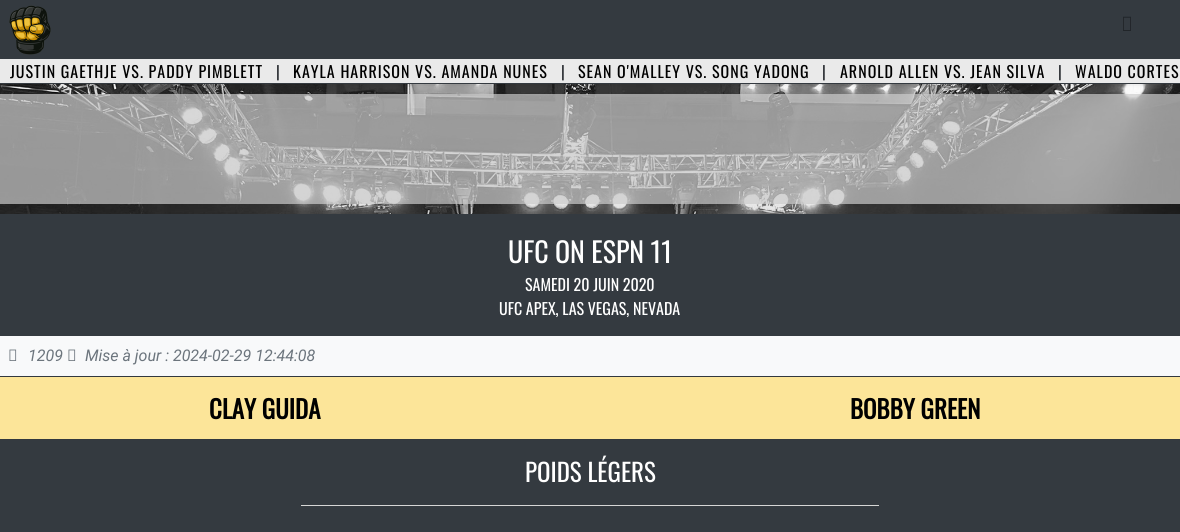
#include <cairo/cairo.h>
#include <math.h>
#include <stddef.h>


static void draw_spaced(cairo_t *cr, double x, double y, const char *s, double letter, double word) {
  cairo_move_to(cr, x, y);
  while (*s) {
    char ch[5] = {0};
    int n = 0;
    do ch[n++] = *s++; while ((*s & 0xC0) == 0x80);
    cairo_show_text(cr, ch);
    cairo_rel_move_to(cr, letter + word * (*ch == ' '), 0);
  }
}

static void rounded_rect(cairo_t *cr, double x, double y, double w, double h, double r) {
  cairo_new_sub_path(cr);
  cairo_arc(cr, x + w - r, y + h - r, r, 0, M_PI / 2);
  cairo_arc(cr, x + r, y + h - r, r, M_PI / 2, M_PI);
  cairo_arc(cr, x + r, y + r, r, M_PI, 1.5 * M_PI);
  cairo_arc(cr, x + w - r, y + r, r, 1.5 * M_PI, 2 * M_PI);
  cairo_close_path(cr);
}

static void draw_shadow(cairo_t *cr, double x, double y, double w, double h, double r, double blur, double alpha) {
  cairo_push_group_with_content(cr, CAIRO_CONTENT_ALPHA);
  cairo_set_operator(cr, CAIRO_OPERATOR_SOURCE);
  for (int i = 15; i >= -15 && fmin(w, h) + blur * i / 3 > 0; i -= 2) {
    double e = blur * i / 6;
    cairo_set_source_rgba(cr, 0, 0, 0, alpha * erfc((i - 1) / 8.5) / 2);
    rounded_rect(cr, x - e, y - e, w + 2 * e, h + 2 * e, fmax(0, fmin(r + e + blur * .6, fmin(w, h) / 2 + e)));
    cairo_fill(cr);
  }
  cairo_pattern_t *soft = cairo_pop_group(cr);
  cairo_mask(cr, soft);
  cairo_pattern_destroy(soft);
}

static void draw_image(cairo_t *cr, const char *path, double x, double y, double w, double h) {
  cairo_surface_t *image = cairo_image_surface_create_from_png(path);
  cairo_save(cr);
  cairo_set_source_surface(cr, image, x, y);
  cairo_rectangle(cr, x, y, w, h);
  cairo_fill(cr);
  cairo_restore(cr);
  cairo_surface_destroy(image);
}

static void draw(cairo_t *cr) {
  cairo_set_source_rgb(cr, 1, 1, 1);
  cairo_paint(cr);
  draw_image(cr, "images/1.png", 0, 84, 1180, 130);
  cairo_set_source_rgb(cr, 52 / 255.0, 58 / 255.0, 64 / 255.0);
  cairo_rectangle(cr, 0, 0, 1180, 59);
  cairo_fill(cr);
  draw_image(cr, "images/2.png", 9, 5, 42, 50);
  draw_image(cr, "images/3.png", 1123, 16, 8, 15);
  cairo_set_source_rgb(cr, 0, 0, 0);
  draw_shadow(cr, 2, 64, 1176, 22, 0, 1, 0.05);
  cairo_set_source_rgb(cr, 234 / 255.0, 234 / 255.0, 234 / 255.0);
  cairo_rectangle(cr, 0, 59, 1180, 24);
  cairo_fill(cr);
  cairo_set_source_rgb(cr, 52 / 255.0, 58 / 255.0, 64 / 255.0);
  cairo_rectangle(cr, 0, 83, 1180, 1);
  cairo_fill(cr);
  cairo_set_source_rgba(cr, 204 / 255.0, 204 / 255.0, 204 / 255.0, 0.7);
  cairo_rectangle(cr, 0, 94, 1180, 110);
  cairo_fill(cr);
  cairo_set_source_rgb(cr, 52 / 255.0, 58 / 255.0, 64 / 255.0);
  cairo_rectangle(cr, 0, 214, 1180, 122);
  cairo_fill(cr);
  cairo_set_source_rgb(cr, 248 / 255.0, 249 / 255.0, 250 / 255.0);
  cairo_rectangle(cr, 0, 336, 1180, 40);
  cairo_fill(cr);
  draw_image(cr, "images/4.png", 9, 349, 8, 12);
  draw_image(cr, "images/4.png", 68, 349, 8, 12);
  cairo_set_source_rgb(cr, 52 / 255.0, 58 / 255.0, 64 / 255.0);
  cairo_rectangle(cr, 0, 440, 1180, 92);
  cairo_fill(cr);
  cairo_set_source_rgb(cr, 252 / 255.0, 229 / 255.0, 153 / 255.0);
  cairo_rectangle(cr, 0, 377, 1180, 62);
  cairo_fill(cr);
  cairo_set_source_rgb(cr, 50 / 255.0, 56 / 255.0, 62 / 255.0);
  cairo_rectangle(cr, 0, 376, 1180, 1);
  cairo_fill(cr);
  cairo_rectangle(cr, 0, 439, 1180, 1);
  cairo_fill(cr);
  cairo_set_source_rgb(cr, 214 / 255.0, 214 / 255.0, 214 / 255.0);
  cairo_rectangle(cr, 301, 505, 578, 1);
  cairo_fill(cr);
  cairo_select_font_face(cr, "Oswald", CAIRO_FONT_SLANT_NORMAL, CAIRO_FONT_WEIGHT_NORMAL);
  cairo_set_font_size(cr, 16);
  cairo_set_source_rgb(cr, 0, 0, 0);
  draw_spaced(cr, 10, 78, "JUSTIN GAETHJE VS. PADDY PIMBLETT", 1, 0);
  cairo_set_source_rgb(cr, 33 / 255.0, 37 / 255.0, 41 / 255.0);
  draw_spaced(cr, 276, 78, "|", 1, 0);
  cairo_set_source_rgb(cr, 0, 0, 0);
  draw_spaced(cr, 293, 78, "KAYLA HARRISON VS. AMANDA NUNES", 1, 0);
  cairo_set_source_rgb(cr, 33 / 255.0, 37 / 255.0, 41 / 255.0);
  draw_spaced(cr, 561, 78, "|", 1, 0);
  cairo_set_source_rgb(cr, 0, 0, 0);
  draw_spaced(cr, 578, 78, "SEAN O'MALLEY VS. SONG YADONG", 1, 0);
  cairo_set_source_rgb(cr, 33 / 255.0, 37 / 255.0, 41 / 255.0);
  draw_spaced(cr, 822, 78, "|", 1, 0);
  cairo_set_source_rgb(cr, 0, 0, 0);
  draw_spaced(cr, 840, 78, "ARNOLD ALLEN VS. JEAN SILVA", 1, 0);
  cairo_set_source_rgb(cr, 33 / 255.0, 37 / 255.0, 41 / 255.0);
  draw_spaced(cr, 1058, 78, "|", 1, 0);
  cairo_set_source_rgb(cr, 0, 0, 0);
  draw_spaced(cr, 1075, 78, "WALDO CORTES", 1, 0);
  cairo_set_font_size(cr, 28);
  cairo_set_source_rgb(cr, 1, 1, 1);
  cairo_move_to(cr, 508, 263);
  cairo_show_text(cr, "UFC ON ESPN 11");
  cairo_set_font_size(cr, 16);
  cairo_move_to(cr, 525, 291);
  cairo_show_text(cr, "SAMEDI 20 JUIN 2020");
  cairo_move_to(cr, 499, 315);
  cairo_show_text(cr, "UFC APEX, LAS VEGAS, NEVADA");
  cairo_select_font_face(cr, "Roboto", CAIRO_FONT_SLANT_ITALIC, CAIRO_FONT_WEIGHT_NORMAL);
  cairo_set_source_rgb(cr, 108 / 255.0, 117 / 255.0, 125 / 255.0);
  cairo_move_to(cr, 28, 361);
  cairo_show_text(cr, "1209");
  cairo_move_to(cr, 85, 361);
  cairo_show_text(cr, "Mise à jour : 2024-02-29 12:44:08");
  cairo_select_font_face(cr, "Oswald", CAIRO_FONT_SLANT_NORMAL, CAIRO_FONT_WEIGHT_BOLD);
  cairo_set_font_size(cr, 25);
  cairo_set_source_rgb(cr, 0, 0, 0);
  cairo_move_to(cr, 209, 419);
  cairo_show_text(cr, "CLAY GUIDA");
  cairo_move_to(cr, 850, 419);
  cairo_show_text(cr, "BOBBY GREEN");
  cairo_select_font_face(cr, "Oswald", CAIRO_FONT_SLANT_NORMAL, CAIRO_FONT_WEIGHT_NORMAL);
  cairo_set_source_rgb(cr, 1, 1, 1);
  cairo_move_to(cr, 525, 482);
  cairo_show_text(cr, "POIDS LÉGERS");
}

int main(void) {
  cairo_surface_t *surface = cairo_image_surface_create(CAIRO_FORMAT_RGB24, 1180, 532);
  cairo_t *cr = cairo_create(surface);
  cairo_font_options_t *options = cairo_font_options_create();
  cairo_font_options_set_hint_metrics(options, CAIRO_HINT_METRICS_OFF);
  cairo_font_options_set_hint_style(options, CAIRO_HINT_STYLE_NONE);
  cairo_set_font_options(cr, options);
  cairo_set_miter_limit(cr, 4);
  draw(cr);
  cairo_surface_write_to_png(surface, "out.png");
  cairo_font_options_destroy(options);
  cairo_destroy(cr);
  cairo_surface_destroy(surface);
  return 0;
}
